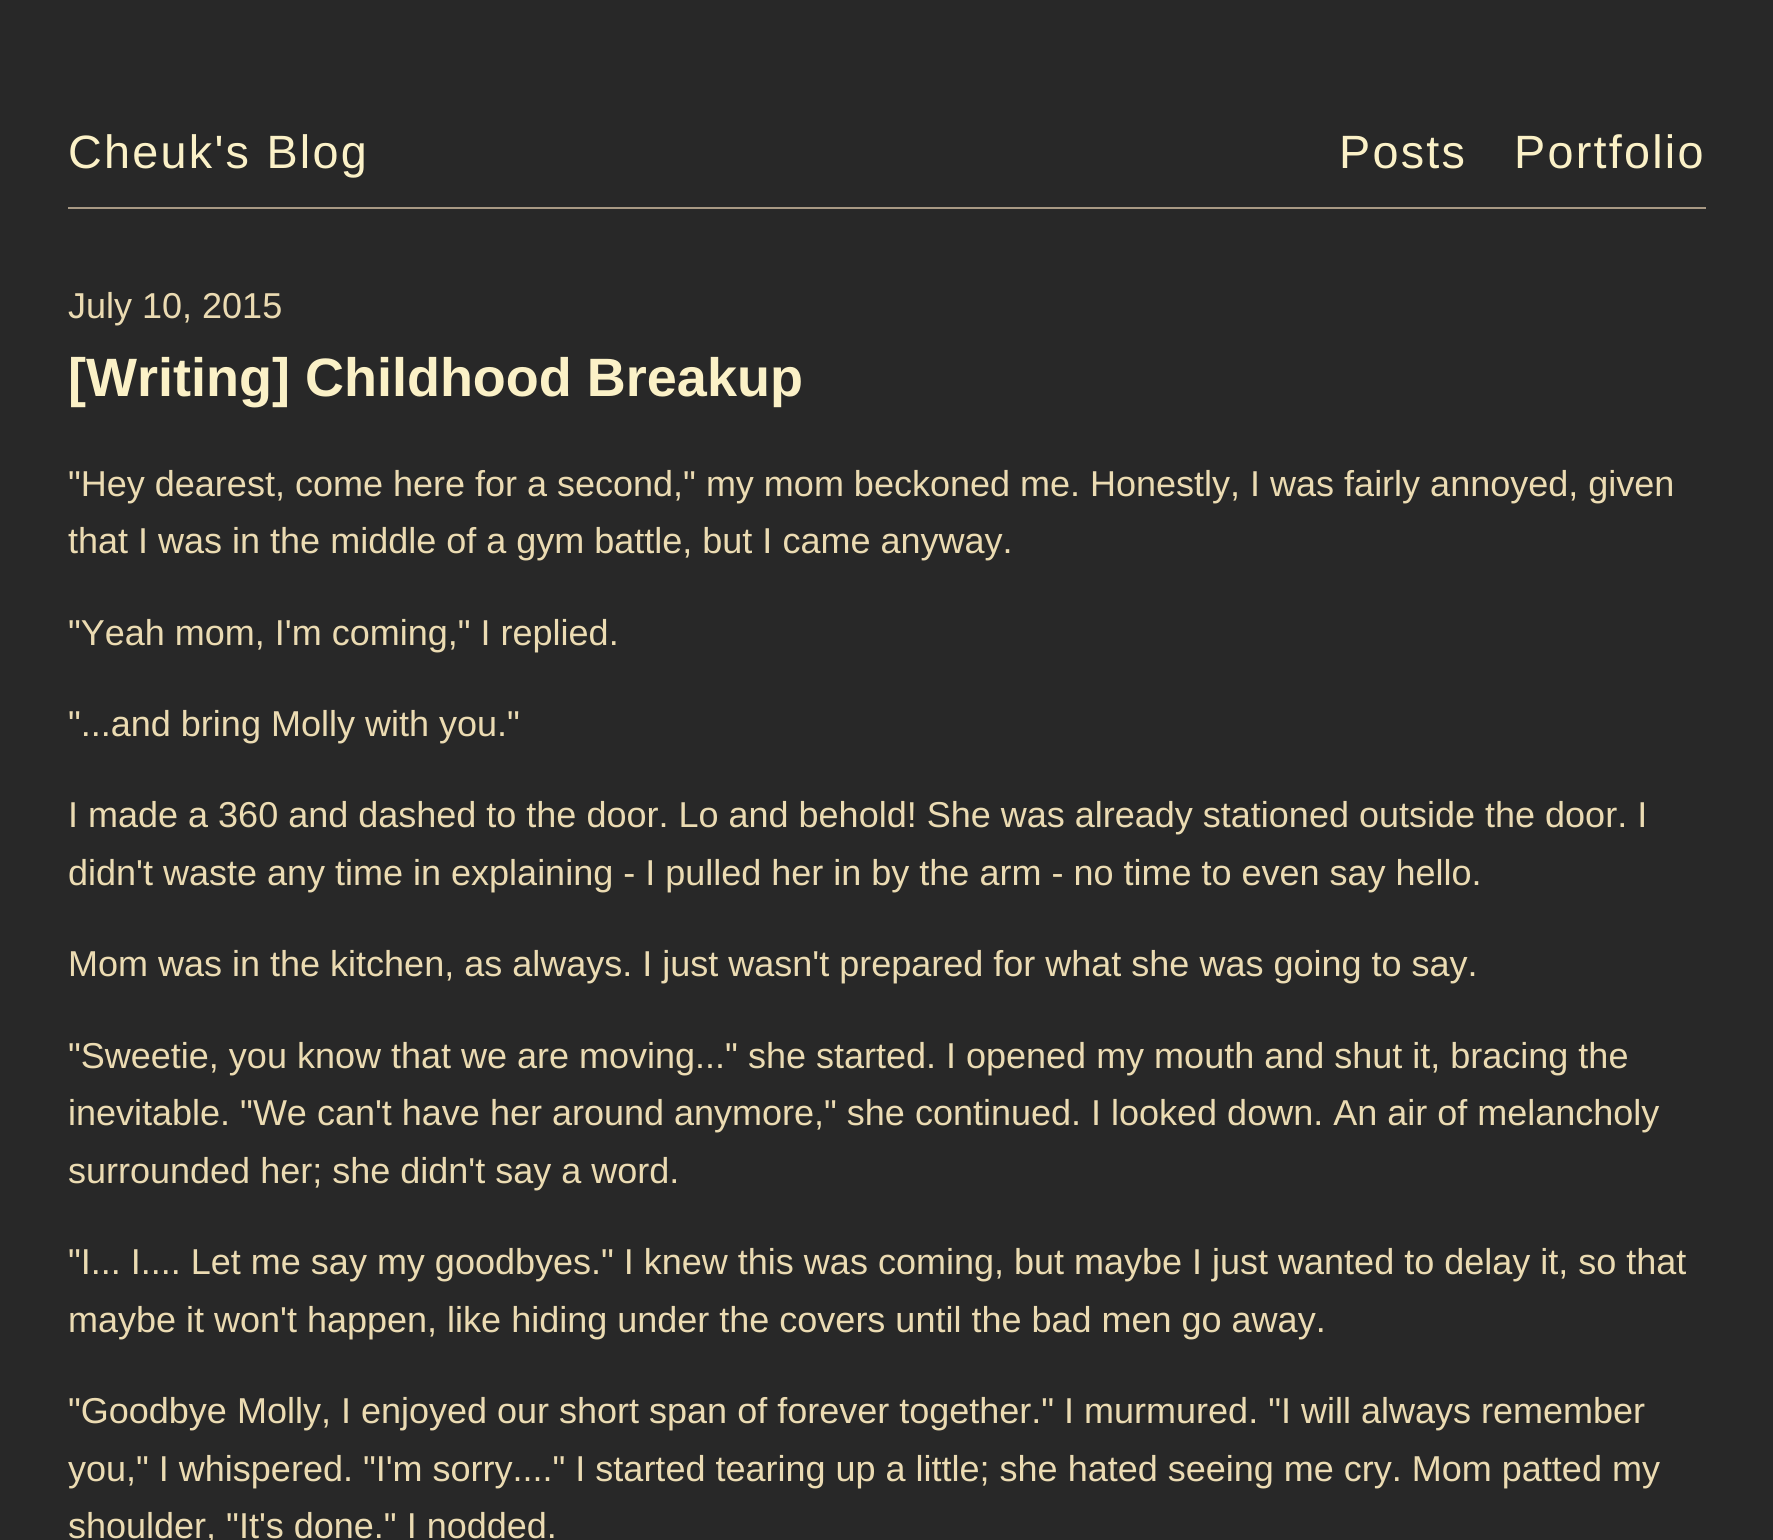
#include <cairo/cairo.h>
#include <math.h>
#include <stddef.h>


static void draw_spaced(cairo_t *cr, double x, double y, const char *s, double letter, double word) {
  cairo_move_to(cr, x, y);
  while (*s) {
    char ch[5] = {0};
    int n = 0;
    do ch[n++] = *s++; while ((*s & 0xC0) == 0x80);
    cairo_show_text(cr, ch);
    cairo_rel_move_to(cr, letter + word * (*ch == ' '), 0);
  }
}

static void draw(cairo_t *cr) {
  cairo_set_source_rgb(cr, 40 / 255.0, 40 / 255.0, 40 / 255.0);
  cairo_paint(cr);
  cairo_set_source_rgb(cr, 168 / 255.0, 153 / 255.0, 132 / 255.0);
  cairo_rectangle(cr, 68, 207, 1638, 2);
  cairo_fill(cr);
  cairo_select_font_face(cr, "Liberation Sans", CAIRO_FONT_SLANT_NORMAL, CAIRO_FONT_WEIGHT_NORMAL);
  cairo_set_font_size(cr, 46.75);
  cairo_set_source_rgb(cr, 251 / 255.0, 241 / 255.0, 199 / 255.0);
  draw_spaced(cr, 68, 168, "Cheuk's Blog", 2.25, 0);
  draw_spaced(cr, 1339, 168, "Posts", 2.25, 0);
  draw_spaced(cr, 1514, 168, "Portfolio", 2.25, 0);
  cairo_set_font_size(cr, 36);
  cairo_set_source_rgb(cr, 235 / 255.0, 219 / 255.0, 178 / 255.0);
  cairo_move_to(cr, 68, 318);
  cairo_show_text(cr, "July 10, 2015");
  cairo_select_font_face(cr, "Liberation Sans", CAIRO_FONT_SLANT_NORMAL, CAIRO_FONT_WEIGHT_BOLD);
  cairo_set_font_size(cr, 54);
  cairo_set_source_rgb(cr, 251 / 255.0, 241 / 255.0, 199 / 255.0);
  cairo_move_to(cr, 68, 396);
  cairo_show_text(cr, "[Writing] Childhood Breakup");
  cairo_select_font_face(cr, "Liberation Sans", CAIRO_FONT_SLANT_NORMAL, CAIRO_FONT_WEIGHT_NORMAL);
  cairo_set_font_size(cr, 36);
  cairo_set_source_rgb(cr, 235 / 255.0, 219 / 255.0, 178 / 255.0);
  cairo_move_to(cr, 68, 496);
  cairo_show_text(cr, "\"Hey dearest, come here for a second,\" my mom beckoned me. Honestly, I was fairly annoyed, given");
  cairo_move_to(cr, 68, 553);
  cairo_show_text(cr, "that I was in the middle of a gym battle, but I came anyway.");
  cairo_move_to(cr, 68, 645);
  cairo_show_text(cr, "\"Yeah mom, I'm coming,\" I replied.");
  cairo_move_to(cr, 68, 736);
  cairo_show_text(cr, "\"...and bring Molly with you.\"");
  cairo_move_to(cr, 68, 827);
  cairo_show_text(cr, "I made a 360 and dashed to the door. Lo and behold! She was already stationed outside the door. I");
  cairo_move_to(cr, 68, 885);
  cairo_show_text(cr, "didn't waste any time in explaining - I pulled her in by the arm - no time to even say hello.");
  cairo_move_to(cr, 68, 976);
  cairo_show_text(cr, "Mom was in the kitchen, as always. I just wasn't prepared for what she was going to say.");
  cairo_move_to(cr, 68, 1068);
  cairo_show_text(cr, "\"Sweetie, you know that we are moving...\" she started. I opened my mouth and shut it, bracing the");
  cairo_move_to(cr, 68, 1125);
  cairo_show_text(cr, "inevitable. \"We can't have her around anymore,\" she continued. I looked down. An air of melancholy");
  cairo_move_to(cr, 68, 1183);
  cairo_show_text(cr, "surrounded her; she didn't say a word.");
  cairo_move_to(cr, 68, 1274);
  cairo_show_text(cr, "\"I... I.... Let me say my goodbyes.\" I knew this was coming, but maybe I just wanted to delay it, so that");
  cairo_move_to(cr, 68, 1332);
  cairo_show_text(cr, "maybe it won't happen, like hiding under the covers until the bad men go away.");
  cairo_move_to(cr, 68, 1423);
  cairo_show_text(cr, "\"Goodbye Molly, I enjoyed our short span of forever together.\" I murmured. \"I will always remember");
  cairo_move_to(cr, 68, 1481);
  cairo_show_text(cr, "you,\" I whispered. \"I'm sorry....\" I started tearing up a little; she hated seeing me cry. Mom patted my");
  cairo_move_to(cr, 68, 1538);
  cairo_show_text(cr, "shoulder, \"It's done.\" I nodded.");
}

int main(void) {
  cairo_surface_t *surface = cairo_image_surface_create(CAIRO_FORMAT_RGB24, 1773, 1540);
  cairo_t *cr = cairo_create(surface);
  cairo_font_options_t *options = cairo_font_options_create();
  cairo_font_options_set_hint_metrics(options, CAIRO_HINT_METRICS_OFF);
  cairo_font_options_set_hint_style(options, CAIRO_HINT_STYLE_NONE);
  cairo_set_font_options(cr, options);
  cairo_set_miter_limit(cr, 4);
  draw(cr);
  cairo_surface_write_to_png(surface, "out.png");
  cairo_font_options_destroy(options);
  cairo_destroy(cr);
  cairo_surface_destroy(surface);
  return 0;
}
